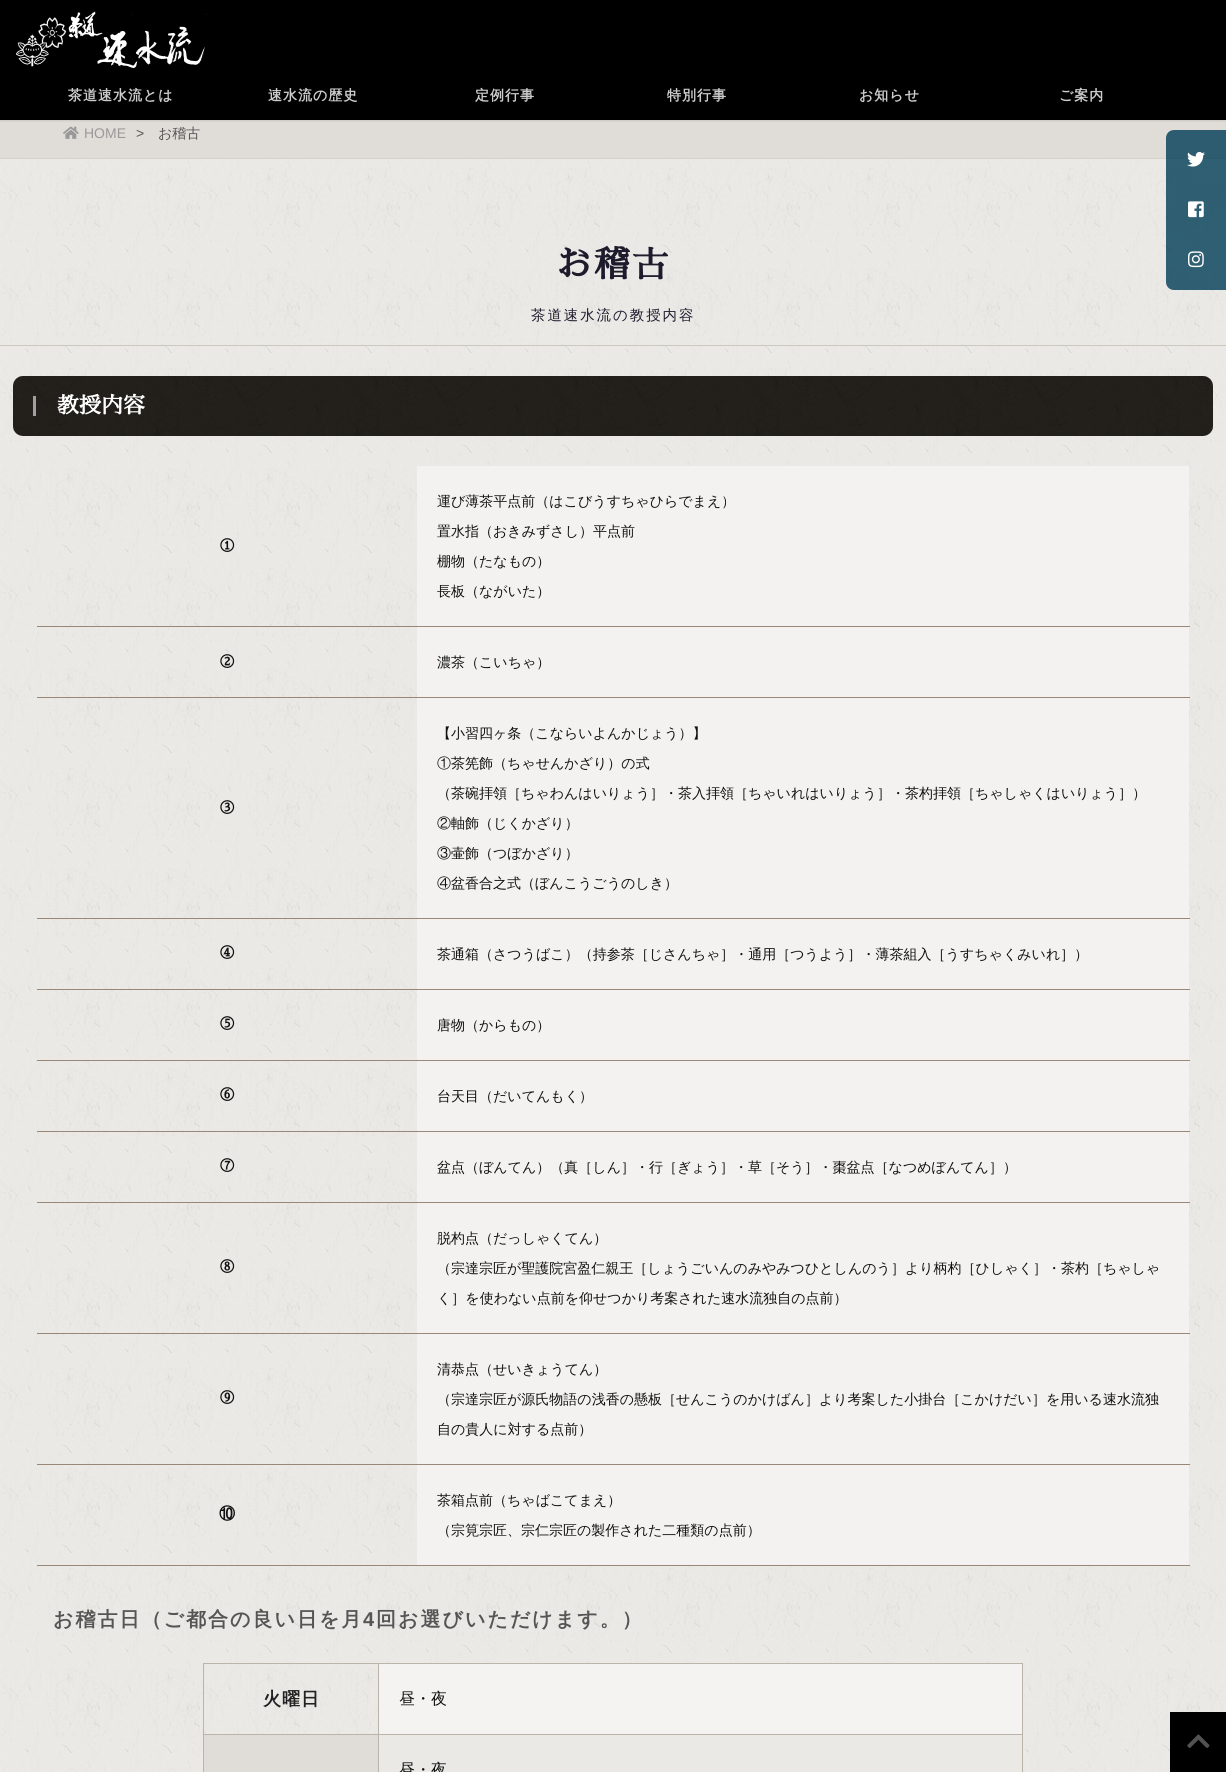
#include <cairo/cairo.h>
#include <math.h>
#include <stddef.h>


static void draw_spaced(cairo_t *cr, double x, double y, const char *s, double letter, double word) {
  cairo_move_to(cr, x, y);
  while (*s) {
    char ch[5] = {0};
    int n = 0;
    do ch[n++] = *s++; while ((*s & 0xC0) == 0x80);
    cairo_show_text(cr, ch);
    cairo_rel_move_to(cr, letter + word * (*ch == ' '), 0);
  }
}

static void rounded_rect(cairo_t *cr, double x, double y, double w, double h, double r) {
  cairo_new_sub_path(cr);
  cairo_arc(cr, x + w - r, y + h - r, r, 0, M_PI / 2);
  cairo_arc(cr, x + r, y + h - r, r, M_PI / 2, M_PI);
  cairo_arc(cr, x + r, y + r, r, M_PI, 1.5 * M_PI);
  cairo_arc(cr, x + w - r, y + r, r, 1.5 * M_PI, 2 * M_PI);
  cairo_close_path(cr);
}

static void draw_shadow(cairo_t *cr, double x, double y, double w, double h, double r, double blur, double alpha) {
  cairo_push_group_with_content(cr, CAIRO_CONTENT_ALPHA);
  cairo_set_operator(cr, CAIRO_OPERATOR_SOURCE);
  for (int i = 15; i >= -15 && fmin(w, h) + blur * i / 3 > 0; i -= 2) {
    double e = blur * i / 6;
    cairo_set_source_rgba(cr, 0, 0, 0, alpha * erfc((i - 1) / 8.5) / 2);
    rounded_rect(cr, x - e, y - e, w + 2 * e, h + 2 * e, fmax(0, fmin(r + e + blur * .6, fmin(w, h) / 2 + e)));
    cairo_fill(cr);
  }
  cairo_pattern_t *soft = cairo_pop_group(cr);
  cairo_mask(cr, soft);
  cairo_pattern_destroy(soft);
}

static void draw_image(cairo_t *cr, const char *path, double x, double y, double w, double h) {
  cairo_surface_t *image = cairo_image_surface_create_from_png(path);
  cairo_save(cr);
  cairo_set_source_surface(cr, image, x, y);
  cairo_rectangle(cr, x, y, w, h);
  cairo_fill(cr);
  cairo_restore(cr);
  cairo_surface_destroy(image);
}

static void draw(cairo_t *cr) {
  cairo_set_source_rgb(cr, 1, 1, 1);
  cairo_paint(cr);
  draw_image(cr, "images/1.png", 0, 159, 1226, 1613);
  cairo_set_source_rgb(cr, 224 / 255.0, 221 / 255.0, 216 / 255.0);
  cairo_rectangle(cr, 0, 120, 1226, 38);
  cairo_fill(cr);
  cairo_set_source_rgb(cr, 0, 0, 0);
  draw_shadow(cr, 0, 0, 1226, 120, 0, 1.5, 0.2);
  cairo_set_source_rgb(cr, 0, 0, 0);
  cairo_rectangle(cr, 0, 0, 1226, 120);
  cairo_fill(cr);
  draw_image(cr, "images/2.png", 15, 11, 192, 58);
  cairo_set_source_rgb(cr, 214 / 255.0, 209 / 255.0, 203 / 255.0);
  cairo_rectangle(cr, 0, 158, 1226, 1);
  cairo_fill(cr);
  cairo_set_source_rgba(cr, 0, 61 / 255.0, 87 / 255.0, 0.8);
  cairo_new_path(cr);
  cairo_move_to(cr, 1174, 130);
  cairo_line_to(cr, 1226, 130);
  cairo_line_to(cr, 1226, 290);
  cairo_line_to(cr, 1174, 290);
  cairo_curve_to(cr, 1169.5, 290, 1166, 286.5, 1166, 282);
  cairo_line_to(cr, 1166, 138);
  cairo_curve_to(cr, 1166, 133.5, 1169.5, 130, 1174, 130);
  cairo_close_path(cr);
  cairo_fill(cr);
  draw_image(cr, "images/3.png", 1187, 151, 18, 16);
  draw_image(cr, "images/4.png", 1188, 201, 16, 17);
  draw_image(cr, "images/5.png", 1188, 251, 16, 17);
  draw_image(cr, "images/6.png", 63, 126, 16, 13);
  cairo_set_source_rgb(cr, 203 / 255.0, 200 / 255.0, 190 / 255.0);
  cairo_rectangle(cr, 0, 345, 1226, 1);
  cairo_fill(cr);
  cairo_set_source_rgb(cr, 128 / 255.0, 128 / 255.0, 128 / 255.0);
  rounded_rect(cr, 13, 376, 1200, 60, 10);
  cairo_fill(cr);
  draw_image(cr, "images/7.png", 13, 376, 1200, 60);
  cairo_set_source_rgb(cr, 160 / 255.0, 160 / 255.0, 160 / 255.0);
  cairo_rectangle(cr, 33, 396, 3, 20);
  cairo_fill(cr);
  cairo_set_source_rgb(cr, 243 / 255.0, 242 / 255.0, 241 / 255.0);
  cairo_rectangle(cr, 417, 466, 772, 160);
  cairo_fill(cr);
  cairo_set_source_rgb(cr, 153 / 255.0, 136 / 255.0, 119 / 255.0);
  cairo_rectangle(cr, 37, 626, 1153, 1);
  cairo_fill(cr);
  cairo_set_source_rgb(cr, 243 / 255.0, 242 / 255.0, 241 / 255.0);
  cairo_rectangle(cr, 417, 627, 772, 70);
  cairo_fill(cr);
  cairo_set_source_rgb(cr, 153 / 255.0, 136 / 255.0, 119 / 255.0);
  cairo_rectangle(cr, 37, 697, 1153, 1);
  cairo_fill(cr);
  cairo_set_source_rgb(cr, 243 / 255.0, 242 / 255.0, 241 / 255.0);
  cairo_rectangle(cr, 417, 698, 772, 220);
  cairo_fill(cr);
  cairo_set_source_rgb(cr, 153 / 255.0, 136 / 255.0, 119 / 255.0);
  cairo_rectangle(cr, 37, 918, 1153, 1);
  cairo_fill(cr);
  cairo_set_source_rgb(cr, 243 / 255.0, 242 / 255.0, 241 / 255.0);
  cairo_rectangle(cr, 417, 919, 772, 70);
  cairo_fill(cr);
  cairo_set_source_rgb(cr, 153 / 255.0, 136 / 255.0, 119 / 255.0);
  cairo_rectangle(cr, 37, 989, 1153, 1);
  cairo_fill(cr);
  cairo_set_source_rgb(cr, 243 / 255.0, 242 / 255.0, 241 / 255.0);
  cairo_rectangle(cr, 417, 990, 772, 70);
  cairo_fill(cr);
  cairo_set_source_rgb(cr, 153 / 255.0, 136 / 255.0, 119 / 255.0);
  cairo_rectangle(cr, 37, 1060, 1153, 1);
  cairo_fill(cr);
  cairo_set_source_rgb(cr, 243 / 255.0, 242 / 255.0, 241 / 255.0);
  cairo_rectangle(cr, 417, 1061, 772, 70);
  cairo_fill(cr);
  cairo_set_source_rgb(cr, 153 / 255.0, 136 / 255.0, 119 / 255.0);
  cairo_rectangle(cr, 37, 1131, 1153, 1);
  cairo_fill(cr);
  cairo_set_source_rgb(cr, 243 / 255.0, 242 / 255.0, 241 / 255.0);
  cairo_rectangle(cr, 417, 1132, 772, 70);
  cairo_fill(cr);
  cairo_set_source_rgb(cr, 153 / 255.0, 136 / 255.0, 119 / 255.0);
  cairo_rectangle(cr, 37, 1202, 1153, 1);
  cairo_fill(cr);
  cairo_set_source_rgb(cr, 243 / 255.0, 242 / 255.0, 241 / 255.0);
  cairo_rectangle(cr, 417, 1203, 772, 130);
  cairo_fill(cr);
  cairo_set_source_rgb(cr, 153 / 255.0, 136 / 255.0, 119 / 255.0);
  cairo_rectangle(cr, 37, 1333, 1153, 1);
  cairo_fill(cr);
  cairo_set_source_rgb(cr, 243 / 255.0, 242 / 255.0, 241 / 255.0);
  cairo_rectangle(cr, 417, 1334, 772, 130);
  cairo_fill(cr);
  cairo_set_source_rgb(cr, 153 / 255.0, 136 / 255.0, 119 / 255.0);
  cairo_rectangle(cr, 37, 1464, 1153, 1);
  cairo_fill(cr);
  cairo_set_source_rgb(cr, 243 / 255.0, 242 / 255.0, 241 / 255.0);
  cairo_rectangle(cr, 417, 1465, 772, 100);
  cairo_fill(cr);
  cairo_set_source_rgb(cr, 153 / 255.0, 136 / 255.0, 119 / 255.0);
  cairo_rectangle(cr, 37, 1565, 1153, 1);
  cairo_fill(cr);
  cairo_set_source_rgb(cr, 186 / 255.0, 180 / 255.0, 169 / 255.0);
  cairo_rectangle(cr, 378, 1663, 645, 1);
  cairo_fill(cr);
  cairo_rectangle(cr, 378, 1734, 645, 1);
  cairo_fill(cr);
  cairo_rectangle(cr, 378, 1734, 1, 38);
  cairo_fill(cr);
  cairo_rectangle(cr, 203, 1734, 176, 1);
  cairo_fill(cr);
  cairo_rectangle(cr, 378, 1663, 1, 72);
  cairo_fill(cr);
  cairo_rectangle(cr, 203, 1663, 176, 1);
  cairo_fill(cr);
  cairo_rectangle(cr, 203, 1734, 1, 38);
  cairo_fill(cr);
  cairo_rectangle(cr, 203, 1663, 1, 72);
  cairo_fill(cr);
  cairo_set_source_rgb(cr, 244 / 255.0, 243 / 255.0, 242 / 255.0);
  cairo_rectangle(cr, 379, 1664, 643, 70);
  cairo_fill(cr);
  cairo_set_source_rgb(cr, 186 / 255.0, 180 / 255.0, 169 / 255.0);
  cairo_rectangle(cr, 1022, 1734, 1, 38);
  cairo_fill(cr);
  cairo_rectangle(cr, 1022, 1663, 1, 72);
  cairo_fill(cr);
  cairo_set_source_rgb(cr, 224 / 255.0, 221 / 255.0, 216 / 255.0);
  cairo_rectangle(cr, 204, 1735, 174, 37);
  cairo_fill(cr);
  cairo_set_source_rgb(cr, 235 / 255.0, 233 / 255.0, 230 / 255.0);
  cairo_rectangle(cr, 380, 1735, 642, 37);
  cairo_fill(cr);
  cairo_set_source_rgb(cr, 0, 0, 0);
  cairo_rectangle(cr, 1170, 1712, 56, 60);
  cairo_fill(cr);
  draw_image(cr, "images/8.png", 1187, 1734, 23, 14);
  cairo_select_font_face(cr, "WenQuanYi Zen Hei", CAIRO_FONT_SLANT_NORMAL, CAIRO_FONT_WEIGHT_BOLD);
  cairo_set_font_size(cr, 14);
  cairo_set_source_rgb(cr, 204 / 255.0, 204 / 255.0, 204 / 255.0);
  draw_spaced(cr, 68, 100, "茶道速水流とは", 1, 0);
  draw_spaced(cr, 268, 100, "速水流の歴史", 1, 0);
  draw_spaced(cr, 475, 100, "定例行事", 1, 0);
  draw_spaced(cr, 667, 100, "特別行事", 1, 0);
  draw_spaced(cr, 859, 100, "お知らせ", 1, 0);
  draw_spaced(cr, 1059, 100, "ご案内", 1, 0);
  cairo_select_font_face(cr, "Liberation Sans", CAIRO_FONT_SLANT_NORMAL, CAIRO_FONT_WEIGHT_NORMAL);
  cairo_set_source_rgb(cr, 153 / 255.0, 153 / 255.0, 153 / 255.0);
  cairo_move_to(cr, 84, 138);
  cairo_show_text(cr, "HOME");
  cairo_set_source_rgb(cr, 85 / 255.0, 85 / 255.0, 85 / 255.0);
  cairo_move_to(cr, 136, 138);
  cairo_show_text(cr, ">");
  cairo_select_font_face(cr, "WenQuanYi Zen Hei Medium", CAIRO_FONT_SLANT_NORMAL, CAIRO_FONT_WEIGHT_NORMAL);
  cairo_move_to(cr, 158, 138);
  cairo_show_text(cr, "お稽古");
  cairo_select_font_face(cr, "Sawarabi Mincho", CAIRO_FONT_SLANT_NORMAL, CAIRO_FONT_WEIGHT_BOLD);
  cairo_set_font_size(cr, 36);
  cairo_set_source_rgb(cr, 29 / 255.0, 27 / 255.0, 44 / 255.0);
  draw_spaced(cr, 556, 277, "お稽古", 2, 0);
  cairo_select_font_face(cr, "WenQuanYi Zen Hei Medium", CAIRO_FONT_SLANT_NORMAL, CAIRO_FONT_WEIGHT_NORMAL);
  cairo_set_font_size(cr, 14.4);
  draw_spaced(cr, 531, 320, "茶道速水流の教授内容", 2, 0);
  cairo_select_font_face(cr, "Sawarabi Mincho", CAIRO_FONT_SLANT_NORMAL, CAIRO_FONT_WEIGHT_BOLD);
  cairo_set_font_size(cr, 22);
  cairo_set_source_rgb(cr, 1, 1, 1);
  cairo_move_to(cr, 57, 413);
  cairo_show_text(cr, "教授内容");
  cairo_set_font_size(cr, 16);
  cairo_set_source_rgb(cr, 17 / 255.0, 17 / 255.0, 17 / 255.0);
  draw_spaced(cr, 219, 551, "①", 1, 0);
  cairo_select_font_face(cr, "WenQuanYi Zen Hei Medium", CAIRO_FONT_SLANT_NORMAL, CAIRO_FONT_WEIGHT_NORMAL);
  cairo_set_font_size(cr, 14);
  cairo_move_to(cr, 437, 506);
  cairo_show_text(cr, "運び薄茶平点前（はこびうすちゃひらでまえ）");
  cairo_move_to(cr, 437, 536);
  cairo_show_text(cr, "置水指（おきみずさし）平点前");
  cairo_move_to(cr, 437, 566);
  cairo_show_text(cr, "棚物（たなもの）");
  cairo_move_to(cr, 437, 596);
  cairo_show_text(cr, "長板（ながいた）");
  cairo_select_font_face(cr, "Sawarabi Mincho", CAIRO_FONT_SLANT_NORMAL, CAIRO_FONT_WEIGHT_BOLD);
  cairo_set_font_size(cr, 16);
  draw_spaced(cr, 219, 667, "②", 1, 0);
  cairo_select_font_face(cr, "WenQuanYi Zen Hei Medium", CAIRO_FONT_SLANT_NORMAL, CAIRO_FONT_WEIGHT_NORMAL);
  cairo_set_font_size(cr, 14);
  cairo_move_to(cr, 437, 667);
  cairo_show_text(cr, "濃茶（こいちゃ）");
  cairo_select_font_face(cr, "Sawarabi Mincho", CAIRO_FONT_SLANT_NORMAL, CAIRO_FONT_WEIGHT_BOLD);
  cairo_set_font_size(cr, 16);
  draw_spaced(cr, 219, 813, "③", 1, 0);
  cairo_select_font_face(cr, "WenQuanYi Zen Hei Medium", CAIRO_FONT_SLANT_NORMAL, CAIRO_FONT_WEIGHT_NORMAL);
  cairo_set_font_size(cr, 14);
  cairo_move_to(cr, 437, 738);
  cairo_show_text(cr, "【小習四ヶ条（こならいよんかじょう）】");
  cairo_move_to(cr, 437, 768);
  cairo_show_text(cr, "①茶筅飾（ちゃせんかざり）の式");
  cairo_move_to(cr, 437, 798);
  cairo_show_text(cr, "（茶碗拝領［ちゃわんはいりょう］・茶入拝領［ちゃいれはいりょう］・茶杓拝領［ちゃしゃくはいりょう］）");
  cairo_move_to(cr, 437, 828);
  cairo_show_text(cr, "②軸飾（じくかざり）");
  cairo_move_to(cr, 437, 858);
  cairo_show_text(cr, "③壷飾（つぼかざり）");
  cairo_move_to(cr, 437, 888);
  cairo_show_text(cr, "④盆香合之式（ぼんこうごうのしき）");
  cairo_select_font_face(cr, "Sawarabi Mincho", CAIRO_FONT_SLANT_NORMAL, CAIRO_FONT_WEIGHT_BOLD);
  cairo_set_font_size(cr, 16);
  draw_spaced(cr, 219, 958, "④", 1, 0);
  cairo_select_font_face(cr, "WenQuanYi Zen Hei Medium", CAIRO_FONT_SLANT_NORMAL, CAIRO_FONT_WEIGHT_NORMAL);
  cairo_set_font_size(cr, 14);
  cairo_move_to(cr, 437, 959);
  cairo_show_text(cr, "茶通箱（さつうばこ）（持参茶［じさんちゃ］・通用［つうよう］・薄茶組入［うすちゃくみいれ］）");
  cairo_select_font_face(cr, "Sawarabi Mincho", CAIRO_FONT_SLANT_NORMAL, CAIRO_FONT_WEIGHT_BOLD);
  cairo_set_font_size(cr, 16);
  draw_spaced(cr, 219, 1029, "⑤", 1, 0);
  cairo_select_font_face(cr, "WenQuanYi Zen Hei Medium", CAIRO_FONT_SLANT_NORMAL, CAIRO_FONT_WEIGHT_NORMAL);
  cairo_set_font_size(cr, 14);
  cairo_move_to(cr, 437, 1030);
  cairo_show_text(cr, "唐物（からもの）");
  cairo_select_font_face(cr, "Sawarabi Mincho", CAIRO_FONT_SLANT_NORMAL, CAIRO_FONT_WEIGHT_BOLD);
  cairo_set_font_size(cr, 16);
  draw_spaced(cr, 219, 1100, "⑥", 1, 0);
  cairo_select_font_face(cr, "WenQuanYi Zen Hei Medium", CAIRO_FONT_SLANT_NORMAL, CAIRO_FONT_WEIGHT_NORMAL);
  cairo_set_font_size(cr, 14);
  cairo_move_to(cr, 437, 1101);
  cairo_show_text(cr, "台天目（だいてんもく）");
  cairo_select_font_face(cr, "Sawarabi Mincho", CAIRO_FONT_SLANT_NORMAL, CAIRO_FONT_WEIGHT_BOLD);
  cairo_set_font_size(cr, 16);
  draw_spaced(cr, 219, 1171, "⑦", 1, 0);
  cairo_select_font_face(cr, "WenQuanYi Zen Hei Medium", CAIRO_FONT_SLANT_NORMAL, CAIRO_FONT_WEIGHT_NORMAL);
  cairo_set_font_size(cr, 14);
  cairo_move_to(cr, 437, 1172);
  cairo_show_text(cr, "盆点（ぼんてん）（真［しん］・行［ぎょう］・草［そう］・棗盆点［なつめぼんてん］）");
  cairo_select_font_face(cr, "Sawarabi Mincho", CAIRO_FONT_SLANT_NORMAL, CAIRO_FONT_WEIGHT_BOLD);
  cairo_set_font_size(cr, 16);
  draw_spaced(cr, 219, 1272, "⑧", 1, 0);
  cairo_select_font_face(cr, "WenQuanYi Zen Hei Medium", CAIRO_FONT_SLANT_NORMAL, CAIRO_FONT_WEIGHT_NORMAL);
  cairo_set_font_size(cr, 14);
  cairo_move_to(cr, 437, 1243);
  cairo_show_text(cr, "脱杓点（だっしゃくてん）");
  cairo_move_to(cr, 437, 1273);
  cairo_show_text(cr, "（宗達宗匠が聖護院宮盈仁親王［しょうごいんのみやみつひとしんのう］より柄杓［ひしゃく］・茶杓［ちゃしゃ");
  cairo_move_to(cr, 437, 1303);
  cairo_show_text(cr, "く］を使わない点前を仰せつかり考案された速水流独自の点前）");
  cairo_select_font_face(cr, "Sawarabi Mincho", CAIRO_FONT_SLANT_NORMAL, CAIRO_FONT_WEIGHT_BOLD);
  cairo_set_font_size(cr, 16);
  draw_spaced(cr, 219, 1403, "⑨", 1, 0);
  cairo_select_font_face(cr, "WenQuanYi Zen Hei Medium", CAIRO_FONT_SLANT_NORMAL, CAIRO_FONT_WEIGHT_NORMAL);
  cairo_set_font_size(cr, 14);
  cairo_move_to(cr, 437, 1374);
  cairo_show_text(cr, "清恭点（せいきょうてん）");
  cairo_move_to(cr, 437, 1404);
  cairo_show_text(cr, "（宗達宗匠が源氏物語の浅香の懸板［せんこうのかけばん］より考案した小掛台［こかけだい］を用いる速水流独");
  cairo_move_to(cr, 437, 1434);
  cairo_show_text(cr, "自の貴人に対する点前）");
  cairo_select_font_face(cr, "WenQuanYi Zen Hei", CAIRO_FONT_SLANT_NORMAL, CAIRO_FONT_WEIGHT_BOLD);
  cairo_set_font_size(cr, 16);
  draw_spaced(cr, 219, 1519, "⑩", 1, 0);
  cairo_select_font_face(cr, "WenQuanYi Zen Hei Medium", CAIRO_FONT_SLANT_NORMAL, CAIRO_FONT_WEIGHT_NORMAL);
  cairo_set_font_size(cr, 14);
  cairo_move_to(cr, 437, 1505);
  cairo_show_text(cr, "茶箱点前（ちゃばこてまえ）");
  cairo_move_to(cr, 437, 1535);
  cairo_show_text(cr, "（宗筧宗匠、宗仁宗匠の製作された二種類の点前）");
  cairo_select_font_face(cr, "WenQuanYi Zen Hei", CAIRO_FONT_SLANT_NORMAL, CAIRO_FONT_WEIGHT_BOLD);
  cairo_set_font_size(cr, 20);
  cairo_set_source_rgb(cr, 85 / 255.0, 85 / 255.0, 85 / 255.0);
  draw_spaced(cr, 53, 1626, "お稽古日（ご都合の良い日を月", 2, 0);
  cairo_select_font_face(cr, "Liberation Sans", CAIRO_FONT_SLANT_NORMAL, CAIRO_FONT_WEIGHT_BOLD);
  draw_spaced(cr, 363, 1626, "4", 2, 0);
  cairo_select_font_face(cr, "WenQuanYi Zen Hei", CAIRO_FONT_SLANT_NORMAL, CAIRO_FONT_WEIGHT_BOLD);
  draw_spaced(cr, 376, 1626, "回お選びいただけます。）", 2, 0);
  cairo_set_font_size(cr, 18);
  cairo_set_source_rgb(cr, 34 / 255.0, 34 / 255.0, 34 / 255.0);
  draw_spaced(cr, 263, 1705, "火曜日", 1, 0);
  cairo_select_font_face(cr, "WenQuanYi Zen Hei Medium", CAIRO_FONT_SLANT_NORMAL, CAIRO_FONT_WEIGHT_NORMAL);
  cairo_set_font_size(cr, 16);
  cairo_set_source_rgb(cr, 17 / 255.0, 17 / 255.0, 17 / 255.0);
  cairo_move_to(cr, 399, 1704);
  cairo_show_text(cr, "昼・夜");
  cairo_move_to(cr, 399, 1775);
  cairo_show_text(cr, "昼・夜");
}

int main(void) {
  cairo_surface_t *surface = cairo_image_surface_create(CAIRO_FORMAT_RGB24, 1226, 1772);
  cairo_t *cr = cairo_create(surface);
  cairo_font_options_t *options = cairo_font_options_create();
  cairo_font_options_set_hint_metrics(options, CAIRO_HINT_METRICS_OFF);
  cairo_font_options_set_hint_style(options, CAIRO_HINT_STYLE_NONE);
  cairo_set_font_options(cr, options);
  cairo_set_miter_limit(cr, 4);
  draw(cr);
  cairo_surface_write_to_png(surface, "out.png");
  cairo_font_options_destroy(options);
  cairo_destroy(cr);
  cairo_surface_destroy(surface);
  return 0;
}
